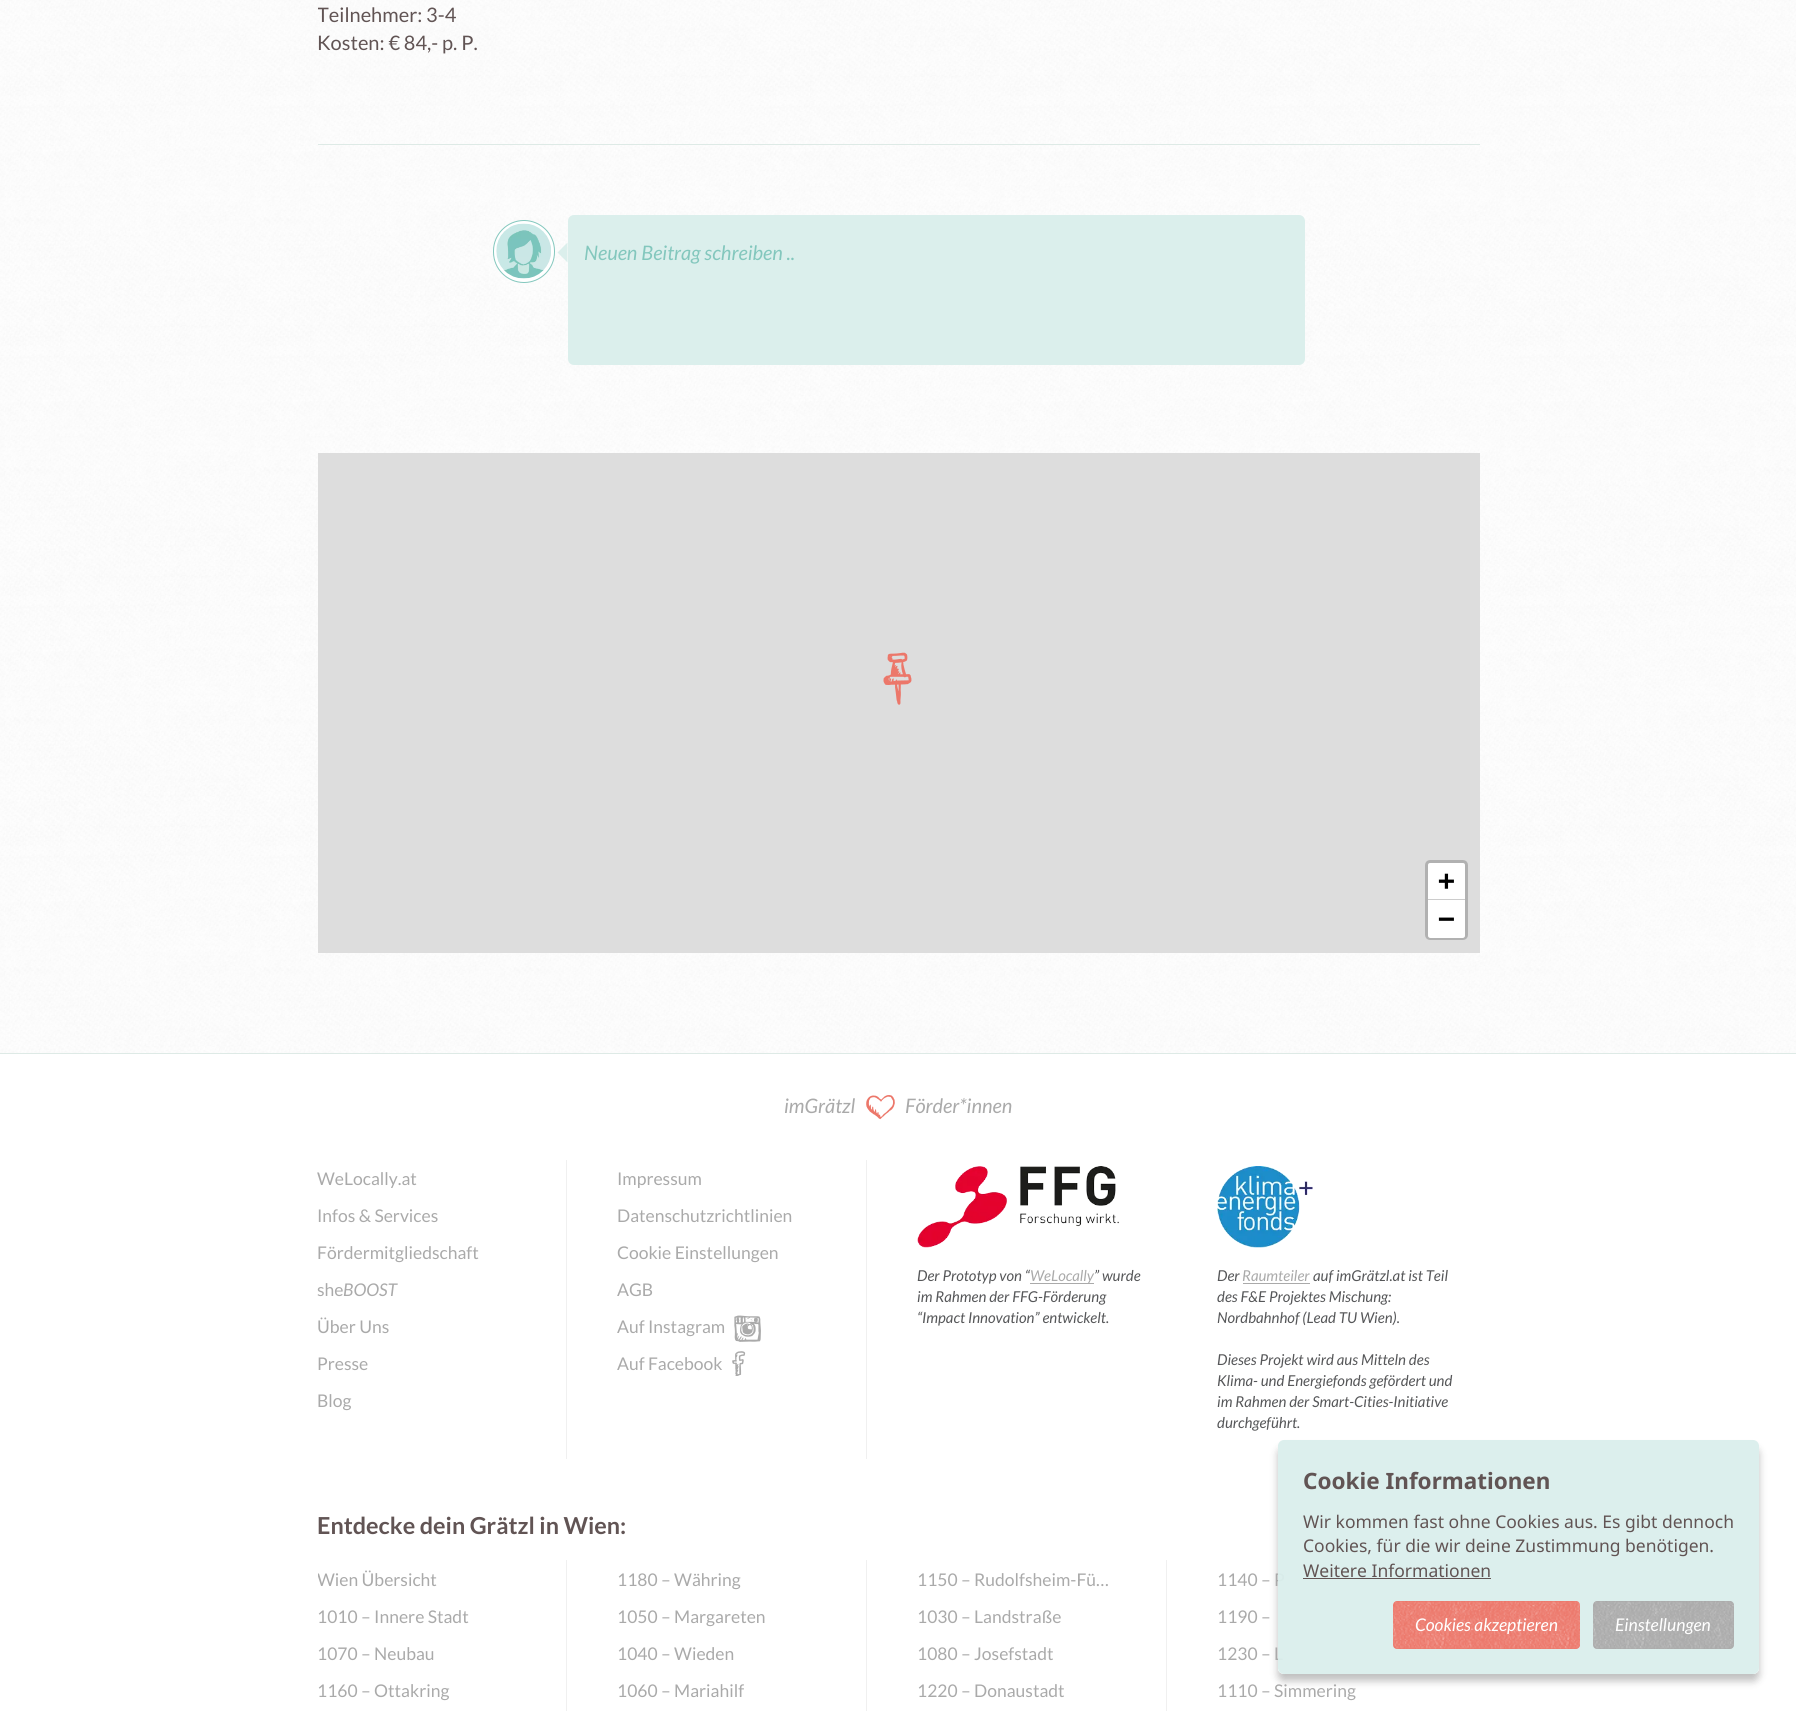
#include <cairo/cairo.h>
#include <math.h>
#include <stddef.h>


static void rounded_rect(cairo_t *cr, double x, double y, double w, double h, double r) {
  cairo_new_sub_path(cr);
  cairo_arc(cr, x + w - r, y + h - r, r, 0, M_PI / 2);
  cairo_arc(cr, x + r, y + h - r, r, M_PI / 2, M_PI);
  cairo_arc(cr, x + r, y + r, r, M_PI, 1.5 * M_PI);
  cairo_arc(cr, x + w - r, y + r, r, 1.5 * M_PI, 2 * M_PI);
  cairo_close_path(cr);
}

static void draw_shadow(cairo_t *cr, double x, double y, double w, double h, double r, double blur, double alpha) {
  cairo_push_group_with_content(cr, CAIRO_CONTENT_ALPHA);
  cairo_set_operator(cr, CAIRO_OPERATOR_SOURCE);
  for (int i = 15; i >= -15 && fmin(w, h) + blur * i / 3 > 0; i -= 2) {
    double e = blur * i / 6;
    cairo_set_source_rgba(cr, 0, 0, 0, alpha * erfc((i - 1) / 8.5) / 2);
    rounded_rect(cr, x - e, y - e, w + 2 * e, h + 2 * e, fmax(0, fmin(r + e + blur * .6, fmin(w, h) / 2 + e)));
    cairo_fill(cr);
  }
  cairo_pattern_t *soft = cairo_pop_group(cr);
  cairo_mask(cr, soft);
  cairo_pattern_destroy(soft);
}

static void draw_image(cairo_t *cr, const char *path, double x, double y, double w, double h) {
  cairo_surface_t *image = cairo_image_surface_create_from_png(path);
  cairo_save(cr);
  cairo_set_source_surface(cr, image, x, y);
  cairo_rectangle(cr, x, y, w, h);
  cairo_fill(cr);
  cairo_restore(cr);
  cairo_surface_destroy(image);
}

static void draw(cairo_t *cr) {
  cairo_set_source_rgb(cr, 1, 1, 1);
  cairo_paint(cr);
  draw_image(cr, "images/1.png", 0, 0, 1796, 1053);
  cairo_set_source_rgb(cr, 222 / 255.0, 234 / 255.0, 230 / 255.0);
  cairo_rectangle(cr, 318, 144, 1162, 1);
  cairo_fill(cr);
  cairo_set_source_rgb(cr, 1, 1, 1);
  rounded_rect(cr, 493.5, 220.5, 61, 62, 30.5);
  cairo_fill_preserve(cr);
  cairo_set_source_rgb(cr, 131 / 255.0, 199 / 255.0, 189 / 255.0);
  cairo_set_line_width(cr, 1);
  cairo_stroke(cr);
  draw_image(cr, "images/2.png", 496, 223, 55, 56);
  cairo_set_source_rgb(cr, 219 / 255.0, 239 / 255.0, 236 / 255.0);
  cairo_new_path(cr);
  cairo_move_to(cr, 567.5, 242.5);
  cairo_line_to(cr, 567.5, 262.5);
  cairo_line_to(cr, 557.5, 252.5);
  cairo_close_path(cr);
  cairo_fill(cr);
  rounded_rect(cr, 568, 215, 737, 150, 6);
  cairo_fill(cr);
  cairo_set_source_rgb(cr, 221 / 255.0, 221 / 255.0, 221 / 255.0);
  cairo_rectangle(cr, 318, 453, 1162, 500);
  cairo_fill(cr);
  draw_image(cr, "images/3.png", 883, 652, 29, 53);
  rounded_rect(cr, 1426.5, 861.5, 40, 77, 3.5);
  cairo_set_source_rgb(cr, 177 / 255.0, 177 / 255.0, 177 / 255.0);
  cairo_set_line_width(cr, 3);
  cairo_stroke(cr);
  cairo_set_source_rgb(cr, 1, 1, 1);
  cairo_new_path(cr);
  cairo_move_to(cr, 1430.5, 863);
  cairo_line_to(cr, 1462.5, 863);
  cairo_curve_to(cr, 1464, 863, 1465, 864, 1465, 865.5);
  cairo_line_to(cr, 1465, 900);
  cairo_line_to(cr, 1428, 900);
  cairo_line_to(cr, 1428, 865.5);
  cairo_curve_to(cr, 1428, 864, 1429, 863, 1430.5, 863);
  cairo_close_path(cr);
  cairo_fill(cr);
  cairo_set_source_rgb(cr, 204 / 255.0, 204 / 255.0, 204 / 255.0);
  cairo_rectangle(cr, 1428, 899, 37, 1);
  cairo_fill(cr);
  cairo_set_source_rgb(cr, 1, 1, 1);
  cairo_new_path(cr);
  cairo_move_to(cr, 1428, 900);
  cairo_line_to(cr, 1465, 900);
  cairo_line_to(cr, 1465, 935.5);
  cairo_curve_to(cr, 1465, 937, 1464, 938, 1462.5, 938);
  cairo_line_to(cr, 1430.5, 938);
  cairo_curve_to(cr, 1429, 938, 1428, 937, 1428, 935.5);
  cairo_close_path(cr);
  cairo_fill(cr);
  cairo_set_source_rgb(cr, 222 / 255.0, 234 / 255.0, 230 / 255.0);
  cairo_rectangle(cr, 0, 1053, 1796, 1);
  cairo_fill(cr);
  draw_image(cr, "images/4.png", 866, 1095, 29, 25);
  cairo_set_source_rgb(cr, 240 / 255.0, 240 / 255.0, 240 / 255.0);
  cairo_rectangle(cr, 566, 1160, 1, 299);
  cairo_fill(cr);
  cairo_rectangle(cr, 866, 1160, 1, 299);
  cairo_fill(cr);
  draw_image(cr, "images/5.png", 734, 1315, 27, 27);
  draw_image(cr, "images/6.png", 732, 1351, 14, 25);
  draw_image(cr, "images/7.png", 917, 1166, 202, 82);
  draw_image(cr, "images/8.png", 1217, 1166, 96, 82);
  cairo_set_source_rgb(cr, 170 / 255.0, 170 / 255.0, 170 / 255.0);
  cairo_rectangle(cr, 1243, 1283, 67, 1);
  cairo_fill(cr);
  cairo_set_source_rgb(cr, 240 / 255.0, 240 / 255.0, 240 / 255.0);
  cairo_rectangle(cr, 566, 1560, 1, 151);
  cairo_fill(cr);
  cairo_rectangle(cr, 866, 1560, 1, 151);
  cairo_fill(cr);
  cairo_rectangle(cr, 1166, 1560, 1, 151);
  cairo_fill(cr);
  cairo_save(cr);
  cairo_set_fill_rule(cr, CAIRO_FILL_RULE_EVEN_ODD);
  cairo_new_path(cr);
  cairo_move_to(cr, 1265, 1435);
  cairo_line_to(cr, 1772, 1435);
  cairo_line_to(cr, 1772, 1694);
  cairo_line_to(cr, 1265, 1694);
  cairo_close_path(cr);
  cairo_move_to(cr, 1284, 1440);
  cairo_line_to(cr, 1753, 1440);
  cairo_curve_to(cr, 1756.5, 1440, 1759, 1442.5, 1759, 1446);
  cairo_line_to(cr, 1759, 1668);
  cairo_curve_to(cr, 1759, 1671.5, 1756.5, 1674, 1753, 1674);
  cairo_line_to(cr, 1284, 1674);
  cairo_curve_to(cr, 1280.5, 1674, 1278, 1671.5, 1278, 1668);
  cairo_line_to(cr, 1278, 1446);
  cairo_curve_to(cr, 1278, 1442.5, 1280.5, 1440, 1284, 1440);
  cairo_close_path(cr);
  cairo_clip(cr);
  cairo_set_source_rgb(cr, 0, 0, 0);
  draw_shadow(cr, 1278, 1448, 481, 233, 6, 4, 0.25);
  cairo_restore(cr);
  cairo_save(cr);
  cairo_rectangle(cr, 318, 0, 762, 81);
  cairo_clip(cr);
  cairo_select_font_face(cr, "Lato", CAIRO_FONT_SLANT_NORMAL, CAIRO_FONT_WEIGHT_NORMAL);
  cairo_set_font_size(cr, 20);
  cairo_set_source_rgb(cr, 97 / 255.0, 84 / 255.0, 84 / 255.0);
  cairo_move_to(cr, 317, 22);
  cairo_show_text(cr, "Teilnehmer: 3-4");
  cairo_restore(cr);
  cairo_select_font_face(cr, "Lato", CAIRO_FONT_SLANT_NORMAL, CAIRO_FONT_WEIGHT_NORMAL);
  cairo_set_font_size(cr, 20);
  cairo_set_source_rgb(cr, 97 / 255.0, 84 / 255.0, 84 / 255.0);
  cairo_move_to(cr, 317, 50);
  cairo_show_text(cr, "Kosten: € 84,- p. P.");
  cairo_select_font_face(cr, "Lato", CAIRO_FONT_SLANT_ITALIC, CAIRO_FONT_WEIGHT_NORMAL);
  cairo_set_source_rgb(cr, 131 / 255.0, 199 / 255.0, 189 / 255.0);
  cairo_move_to(cr, 584, 260);
  cairo_show_text(cr, "Neuen Beitrag schreiben ..");
  cairo_select_font_face(cr, "DejaVu Sans Mono", CAIRO_FONT_SLANT_NORMAL, CAIRO_FONT_WEIGHT_BOLD);
  cairo_set_font_size(cr, 28);
  cairo_set_source_rgb(cr, 0, 0, 0);
  cairo_move_to(cr, 1438, 890);
  cairo_show_text(cr, "+");
  cairo_move_to(cr, 1438, 928);
  cairo_show_text(cr, "−");
  cairo_select_font_face(cr, "Lato", CAIRO_FONT_SLANT_ITALIC, CAIRO_FONT_WEIGHT_NORMAL);
  cairo_set_font_size(cr, 20);
  cairo_set_source_rgb(cr, 170 / 255.0, 170 / 255.0, 170 / 255.0);
  cairo_move_to(cr, 784, 1113);
  cairo_show_text(cr, "imGrätzl");
  cairo_move_to(cr, 905, 1113);
  cairo_show_text(cr, "Förder*innen");
  cairo_select_font_face(cr, "Lato", CAIRO_FONT_SLANT_NORMAL, CAIRO_FONT_WEIGHT_NORMAL);
  cairo_set_font_size(cr, 17.5);
  cairo_move_to(cr, 317, 1185);
  cairo_show_text(cr, "WeLocally.at");
  cairo_move_to(cr, 317, 1222);
  cairo_show_text(cr, "Infos & Services");
  cairo_move_to(cr, 317, 1259);
  cairo_show_text(cr, "Fördermitgliedschaft");
  cairo_move_to(cr, 317, 1296);
  cairo_show_text(cr, "she");
  cairo_select_font_face(cr, "Lato", CAIRO_FONT_SLANT_ITALIC, CAIRO_FONT_WEIGHT_NORMAL);
  cairo_move_to(cr, 343, 1296);
  cairo_show_text(cr, "BOOST");
  cairo_select_font_face(cr, "Lato", CAIRO_FONT_SLANT_NORMAL, CAIRO_FONT_WEIGHT_NORMAL);
  cairo_move_to(cr, 317, 1333);
  cairo_show_text(cr, "Über Uns");
  cairo_move_to(cr, 317, 1370);
  cairo_show_text(cr, "Presse");
  cairo_move_to(cr, 317, 1407);
  cairo_show_text(cr, "Blog");
  cairo_move_to(cr, 617, 1185);
  cairo_show_text(cr, "Impressum");
  cairo_move_to(cr, 617, 1222);
  cairo_show_text(cr, "Datenschutzrichtlinien");
  cairo_move_to(cr, 617, 1259);
  cairo_show_text(cr, "Cookie Einstellungen");
  cairo_move_to(cr, 617, 1296);
  cairo_show_text(cr, "AGB");
  cairo_move_to(cr, 617, 1333);
  cairo_show_text(cr, "Auf Instagram");
  cairo_move_to(cr, 617, 1370);
  cairo_show_text(cr, "Auf Facebook");
  cairo_select_font_face(cr, "Lato", CAIRO_FONT_SLANT_ITALIC, CAIRO_FONT_WEIGHT_NORMAL);
  cairo_set_font_size(cr, 15);
  cairo_set_source_rgb(cr, 86 / 255.0, 87 / 255.0, 89 / 255.0);
  cairo_move_to(cr, 917, 1281);
  cairo_show_text(cr, "Der Prototyp von “");
  cairo_set_source_rgb(cr, 170 / 255.0, 170 / 255.0, 170 / 255.0);
  cairo_rectangle(cr, 1030, 1283, 64, 1);
  cairo_fill(cr);
  cairo_move_to(cr, 1030, 1281);
  cairo_show_text(cr, "WeLocally");
  cairo_set_source_rgb(cr, 86 / 255.0, 87 / 255.0, 89 / 255.0);
  cairo_move_to(cr, 1094, 1281);
  cairo_show_text(cr, "” wurde");
  cairo_move_to(cr, 917, 1302);
  cairo_show_text(cr, "im Rahmen der FFG-Förderung");
  cairo_move_to(cr, 917, 1323);
  cairo_show_text(cr, "“Impact Innovation” entwickelt.");
  cairo_move_to(cr, 1217, 1281);
  cairo_show_text(cr, "Der");
  cairo_set_source_rgb(cr, 170 / 255.0, 170 / 255.0, 170 / 255.0);
  cairo_move_to(cr, 1242, 1281);
  cairo_show_text(cr, "Raumteiler");
  cairo_set_source_rgb(cr, 86 / 255.0, 87 / 255.0, 89 / 255.0);
  cairo_move_to(cr, 1313, 1281);
  cairo_show_text(cr, "auf imGrätzl.at ist Teil");
  cairo_move_to(cr, 1217, 1302);
  cairo_show_text(cr, "des F&E Projektes Mischung:");
  cairo_move_to(cr, 1217, 1323);
  cairo_show_text(cr, "Nordbahnhof (Lead TU Wien).");
  cairo_move_to(cr, 1217, 1365);
  cairo_show_text(cr, "Dieses Projekt wird aus Mitteln des");
  cairo_move_to(cr, 1217, 1386);
  cairo_show_text(cr, "Klima- und Energiefonds gefördert und");
  cairo_move_to(cr, 1217, 1407);
  cairo_show_text(cr, "im Rahmen der Smart-Cities-Initiative");
  cairo_move_to(cr, 1217, 1428);
  cairo_show_text(cr, "durchgeführt.");
  cairo_select_font_face(cr, "Lato", CAIRO_FONT_SLANT_NORMAL, CAIRO_FONT_WEIGHT_BOLD);
  cairo_set_font_size(cr, 23.4);
  cairo_set_source_rgb(cr, 97 / 255.0, 84 / 255.0, 84 / 255.0);
  cairo_move_to(cr, 317, 1534);
  cairo_show_text(cr, "Entdecke dein Grätzl in Wien:");
  cairo_save(cr);
  cairo_rectangle(cr, 318, 1560, 198, 38);
  cairo_clip(cr);
  cairo_select_font_face(cr, "Lato", CAIRO_FONT_SLANT_NORMAL, CAIRO_FONT_WEIGHT_NORMAL);
  cairo_set_font_size(cr, 17.5);
  cairo_set_source_rgb(cr, 170 / 255.0, 170 / 255.0, 170 / 255.0);
  cairo_move_to(cr, 317, 1586);
  cairo_show_text(cr, "Wien Übersicht");
  cairo_restore(cr);
  cairo_select_font_face(cr, "Lato", CAIRO_FONT_SLANT_NORMAL, CAIRO_FONT_WEIGHT_NORMAL);
  cairo_set_font_size(cr, 17.5);
  cairo_set_source_rgb(cr, 170 / 255.0, 170 / 255.0, 170 / 255.0);
  cairo_move_to(cr, 317, 1623);
  cairo_show_text(cr, "1010 – Innere Stadt");
  cairo_move_to(cr, 317, 1660);
  cairo_show_text(cr, "1070 – Neubau");
  cairo_move_to(cr, 317, 1697);
  cairo_show_text(cr, "1160 – Ottakring");
  cairo_move_to(cr, 617, 1586);
  cairo_show_text(cr, "1180 – Währing");
  cairo_move_to(cr, 617, 1623);
  cairo_show_text(cr, "1050 – Margareten");
  cairo_move_to(cr, 617, 1660);
  cairo_show_text(cr, "1040 – Wieden");
  cairo_move_to(cr, 617, 1697);
  cairo_show_text(cr, "1060 – Mariahilf");
  cairo_move_to(cr, 917, 1586);
  cairo_show_text(cr, "1150 – Rudolfsheim-Fü…");
  cairo_move_to(cr, 917, 1623);
  cairo_show_text(cr, "1030 – Landstraße");
  cairo_move_to(cr, 917, 1660);
  cairo_show_text(cr, "1080 – Josefstadt");
  cairo_move_to(cr, 917, 1697);
  cairo_show_text(cr, "1220 – Donaustadt");
  cairo_move_to(cr, 1217, 1586);
  cairo_show_text(cr, "1140 – P");
  cairo_move_to(cr, 1217, 1623);
  cairo_show_text(cr, "1190 –");
  cairo_move_to(cr, 1217, 1660);
  cairo_show_text(cr, "1230 – L");
  cairo_move_to(cr, 1217, 1697);
  cairo_show_text(cr, "1110 – Simmering");
  cairo_set_source_rgba(cr, 219 / 255.0, 239 / 255.0, 236 / 255.0, 0.95);
  rounded_rect(cr, 1278, 1440, 481, 234, 6);
  cairo_fill(cr);
  cairo_select_font_face(cr, "Noto Sans", CAIRO_FONT_SLANT_NORMAL, CAIRO_FONT_WEIGHT_BOLD);
  cairo_set_font_size(cr, 22.5);
  cairo_set_source_rgb(cr, 97 / 255.0, 84 / 255.0, 84 / 255.0);
  cairo_move_to(cr, 1303, 1489);
  cairo_show_text(cr, "Cookie Informationen");
  cairo_select_font_face(cr, "Noto Sans", CAIRO_FONT_SLANT_NORMAL, CAIRO_FONT_WEIGHT_NORMAL);
  cairo_set_font_size(cr, 17.5);
  cairo_move_to(cr, 1303, 1528);
  cairo_show_text(cr, "Wir kommen fast ohne Cookies aus. Es gibt dennoch");
  cairo_move_to(cr, 1303, 1552);
  cairo_show_text(cr, "Cookies, für die wir deine Zustimmung benötigen.");
  cairo_move_to(cr, 1303, 1577);
  cairo_show_text(cr, "Weitere Informationen");
  cairo_rectangle(cr, 1303, 1578, 188, 1);
  cairo_fill(cr);
  cairo_set_source_rgb(cr, 236 / 255.0, 119 / 255.0, 106 / 255.0);
  rounded_rect(cr, 1393, 1601, 187, 48, 4);
  cairo_fill(cr);
  draw_image(cr, "images/9.png", 1393, 1601, 187, 48);
  cairo_select_font_face(cr, "Lato", CAIRO_FONT_SLANT_ITALIC, CAIRO_FONT_WEIGHT_NORMAL);
  cairo_set_source_rgb(cr, 1, 1, 1);
  cairo_move_to(cr, 1415, 1631);
  cairo_show_text(cr, "Cookies akzeptieren");
  cairo_set_source_rgb(cr, 170 / 255.0, 170 / 255.0, 170 / 255.0);
  rounded_rect(cr, 1593, 1601, 141, 48, 4);
  cairo_fill(cr);
  draw_image(cr, "images/10.png", 1593, 1601, 141, 48);
  cairo_set_source_rgb(cr, 1, 1, 1);
  cairo_move_to(cr, 1615, 1631);
  cairo_show_text(cr, "Einstellungen");
}

int main(void) {
  cairo_surface_t *surface = cairo_image_surface_create(CAIRO_FORMAT_RGB24, 1796, 1711);
  cairo_t *cr = cairo_create(surface);
  cairo_font_options_t *options = cairo_font_options_create();
  cairo_font_options_set_hint_metrics(options, CAIRO_HINT_METRICS_OFF);
  cairo_font_options_set_hint_style(options, CAIRO_HINT_STYLE_NONE);
  cairo_set_font_options(cr, options);
  cairo_set_miter_limit(cr, 4);
  draw(cr);
  cairo_surface_write_to_png(surface, "out.png");
  cairo_font_options_destroy(options);
  cairo_destroy(cr);
  cairo_surface_destroy(surface);
  return 0;
}
